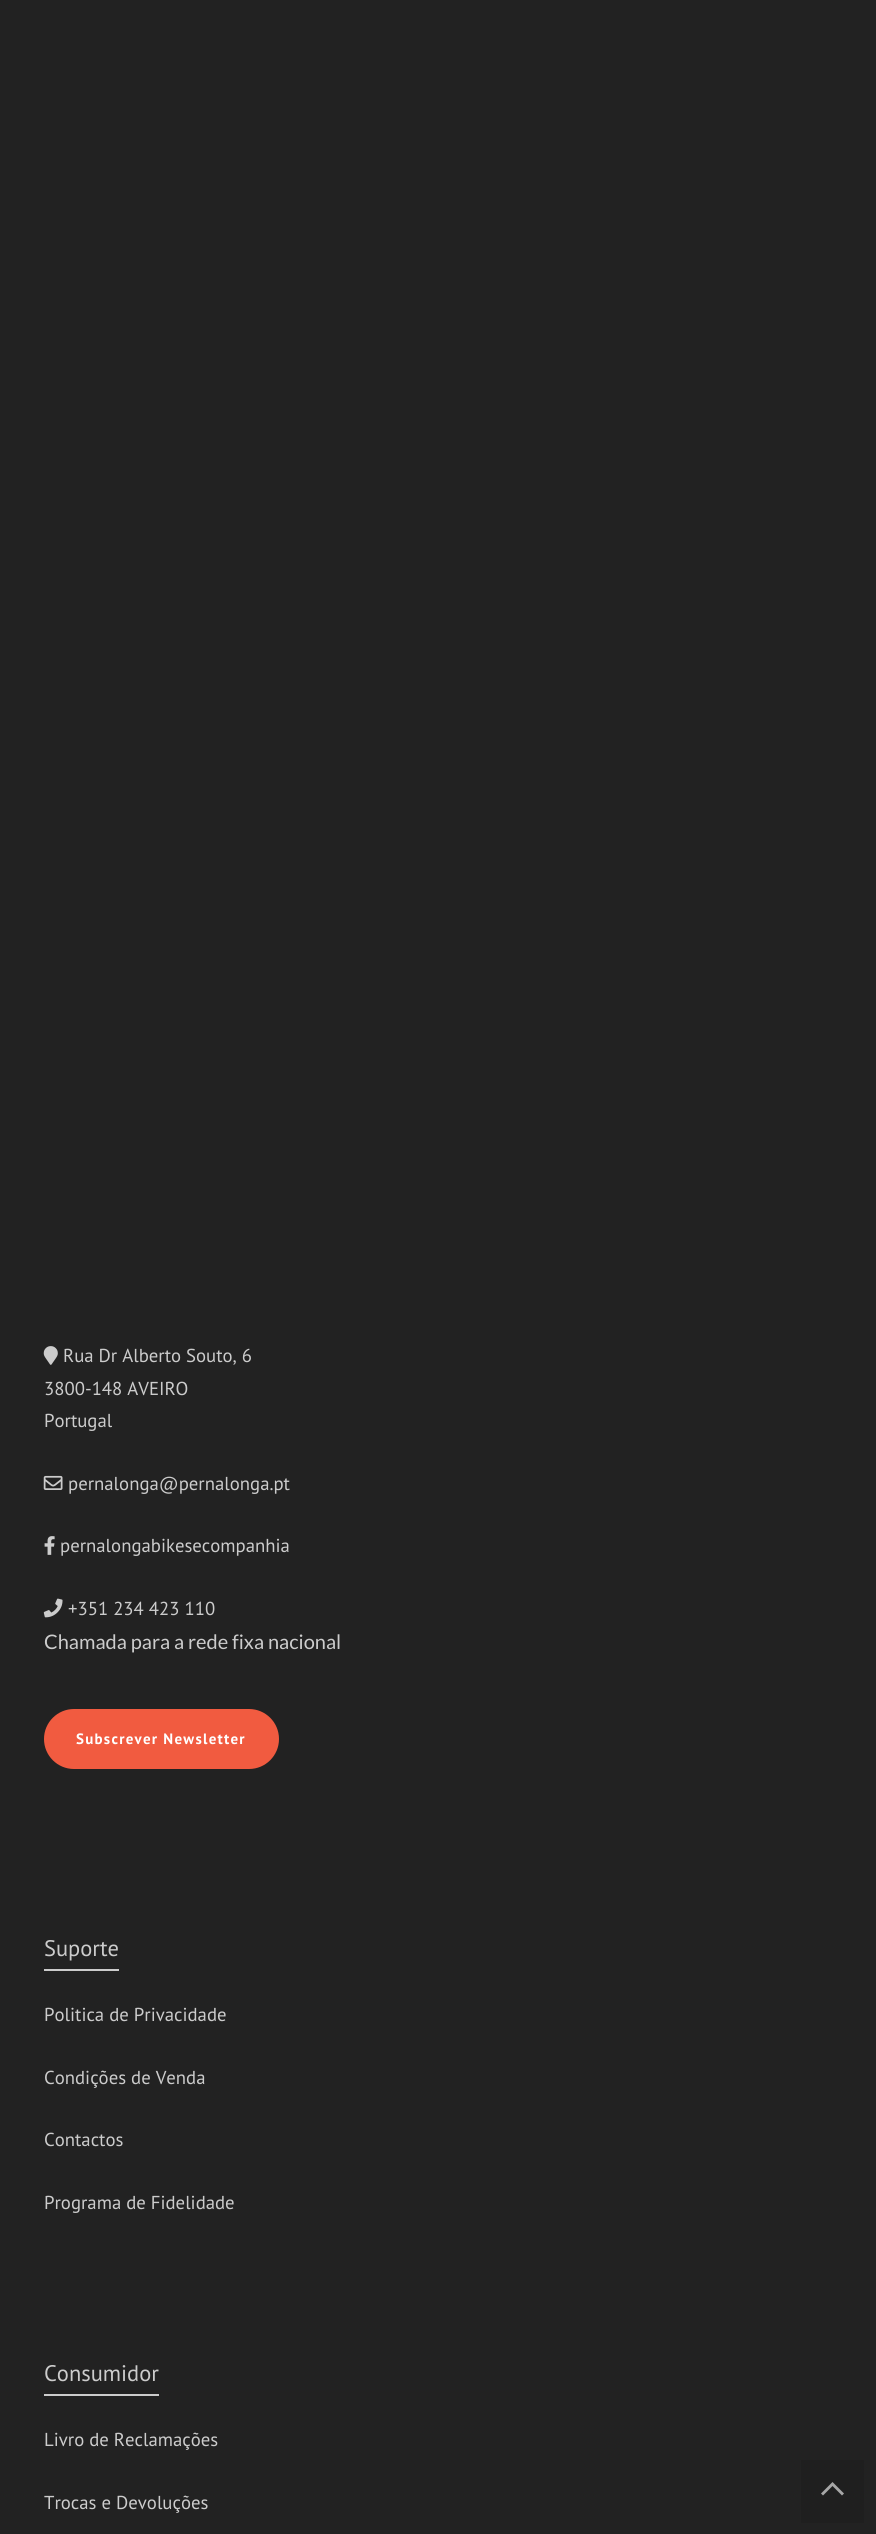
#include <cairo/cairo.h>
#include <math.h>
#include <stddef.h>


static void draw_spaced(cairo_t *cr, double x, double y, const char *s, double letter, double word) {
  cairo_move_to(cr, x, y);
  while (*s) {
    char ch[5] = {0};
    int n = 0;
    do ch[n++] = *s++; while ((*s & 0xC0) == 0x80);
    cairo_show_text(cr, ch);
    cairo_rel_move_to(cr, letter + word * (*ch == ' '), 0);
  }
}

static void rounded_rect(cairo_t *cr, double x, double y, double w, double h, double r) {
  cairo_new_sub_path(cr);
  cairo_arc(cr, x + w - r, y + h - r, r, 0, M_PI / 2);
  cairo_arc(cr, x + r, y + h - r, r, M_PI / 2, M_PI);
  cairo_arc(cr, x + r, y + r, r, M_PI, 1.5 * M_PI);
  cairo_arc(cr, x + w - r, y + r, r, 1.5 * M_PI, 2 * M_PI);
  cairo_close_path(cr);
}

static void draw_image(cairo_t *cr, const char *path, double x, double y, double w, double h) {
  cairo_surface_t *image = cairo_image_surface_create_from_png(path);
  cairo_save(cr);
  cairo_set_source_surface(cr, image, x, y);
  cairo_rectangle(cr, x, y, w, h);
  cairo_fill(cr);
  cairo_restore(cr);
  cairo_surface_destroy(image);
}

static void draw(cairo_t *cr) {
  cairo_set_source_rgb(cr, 34 / 255.0, 34 / 255.0, 34 / 255.0);
  cairo_paint(cr);
  draw_image(cr, "images/1.png", 43, 1346, 15, 19);
  draw_image(cr, "images/2.png", 43, 1475, 20, 15);
  draw_image(cr, "images/3.png", 44, 1536, 11, 19);
  draw_image(cr, "images/4.png", 43, 1598, 20, 20);
  cairo_set_source_rgb(cr, 241 / 255.0, 91 / 255.0, 64 / 255.0);
  rounded_rect(cr, 44, 1709, 235, 60, 30);
  cairo_fill(cr);
  cairo_set_source_rgb(cr, 204 / 255.0, 204 / 255.0, 204 / 255.0);
  cairo_rectangle(cr, 44, 1969, 75, 2);
  cairo_fill(cr);
  cairo_rectangle(cr, 44, 2394, 115, 2);
  cairo_fill(cr);
  cairo_set_source_rgb(cr, 31 / 255.0, 31 / 255.0, 31 / 255.0);
  cairo_rectangle(cr, 801, 2460, 63, 63);
  cairo_fill(cr);
  cairo_set_source_rgb(cr, 167 / 255.0, 167 / 255.0, 167 / 255.0);
  cairo_new_path(cr);
  cairo_move_to(cr, 821, 2493.5);
  cairo_line_to(cr, 823, 2495.5);
  cairo_line_to(cr, 832.5, 2486);
  cairo_line_to(cr, 842, 2495.5);
  cairo_line_to(cr, 844, 2493.5);
  cairo_line_to(cr, 832.5, 2482);
  cairo_close_path(cr);
  cairo_fill(cr);
  cairo_select_font_face(cr, "PT Sans", CAIRO_FONT_SLANT_NORMAL, CAIRO_FONT_WEIGHT_NORMAL);
  cairo_set_font_size(cr, 18.75);
  cairo_set_source_rgb(cr, 204 / 255.0, 204 / 255.0, 204 / 255.0);
  cairo_move_to(cr, 63, 1362);
  cairo_show_text(cr, "Rua Dr Alberto Souto, 6");
  cairo_move_to(cr, 44, 1395);
  cairo_show_text(cr, "3800-148 AVEIRO");
  cairo_move_to(cr, 44, 1427);
  cairo_show_text(cr, "Portugal");
  cairo_move_to(cr, 68, 1490);
  cairo_show_text(cr, "pernalonga@pernalonga.pt");
  cairo_move_to(cr, 60, 1552);
  cairo_show_text(cr, "pernalongabikesecompanhia");
  cairo_move_to(cr, 68, 1615);
  cairo_show_text(cr, "+351 234 423 110");
  cairo_select_font_face(cr, "Lato", CAIRO_FONT_SLANT_NORMAL, CAIRO_FONT_WEIGHT_NORMAL);
  cairo_set_font_size(cr, 20);
  cairo_move_to(cr, 44, 1649);
  cairo_show_text(cr, "Chamada para a rede fixa nacional");
  cairo_select_font_face(cr, "PT Sans", CAIRO_FONT_SLANT_NORMAL, CAIRO_FONT_WEIGHT_BOLD);
  cairo_set_font_size(cr, 15);
  cairo_set_source_rgb(cr, 1, 1, 1);
  draw_spaced(cr, 76, 1744, "Subscrever Newsletter", 1.25, 0);
  cairo_select_font_face(cr, "PT Sans", CAIRO_FONT_SLANT_NORMAL, CAIRO_FONT_WEIGHT_NORMAL);
  cairo_set_font_size(cr, 22.5);
  cairo_set_source_rgb(cr, 204 / 255.0, 204 / 255.0, 204 / 255.0);
  cairo_move_to(cr, 44, 1956);
  cairo_show_text(cr, "Suporte");
  cairo_set_font_size(cr, 18.75);
  cairo_move_to(cr, 44, 2021);
  cairo_show_text(cr, "Politica de Privacidade");
  cairo_move_to(cr, 44, 2084);
  cairo_show_text(cr, "Condições de Venda");
  cairo_move_to(cr, 44, 2146);
  cairo_show_text(cr, "Contactos");
  cairo_move_to(cr, 44, 2209);
  cairo_show_text(cr, "Programa de Fidelidade");
  cairo_set_font_size(cr, 22.5);
  cairo_move_to(cr, 44, 2381);
  cairo_show_text(cr, "Consumidor");
  cairo_set_font_size(cr, 18.75);
  cairo_move_to(cr, 44, 2446);
  cairo_show_text(cr, "Livro de Reclamações");
  cairo_move_to(cr, 44, 2509);
  cairo_show_text(cr, "Trocas e Devoluções");
}

int main(void) {
  cairo_surface_t *surface = cairo_image_surface_create(CAIRO_FORMAT_RGB24, 876, 2534);
  cairo_t *cr = cairo_create(surface);
  cairo_font_options_t *options = cairo_font_options_create();
  cairo_font_options_set_hint_metrics(options, CAIRO_HINT_METRICS_OFF);
  cairo_font_options_set_hint_style(options, CAIRO_HINT_STYLE_NONE);
  cairo_set_font_options(cr, options);
  cairo_set_miter_limit(cr, 4);
  draw(cr);
  cairo_surface_write_to_png(surface, "out.png");
  cairo_font_options_destroy(options);
  cairo_destroy(cr);
  cairo_surface_destroy(surface);
  return 0;
}
